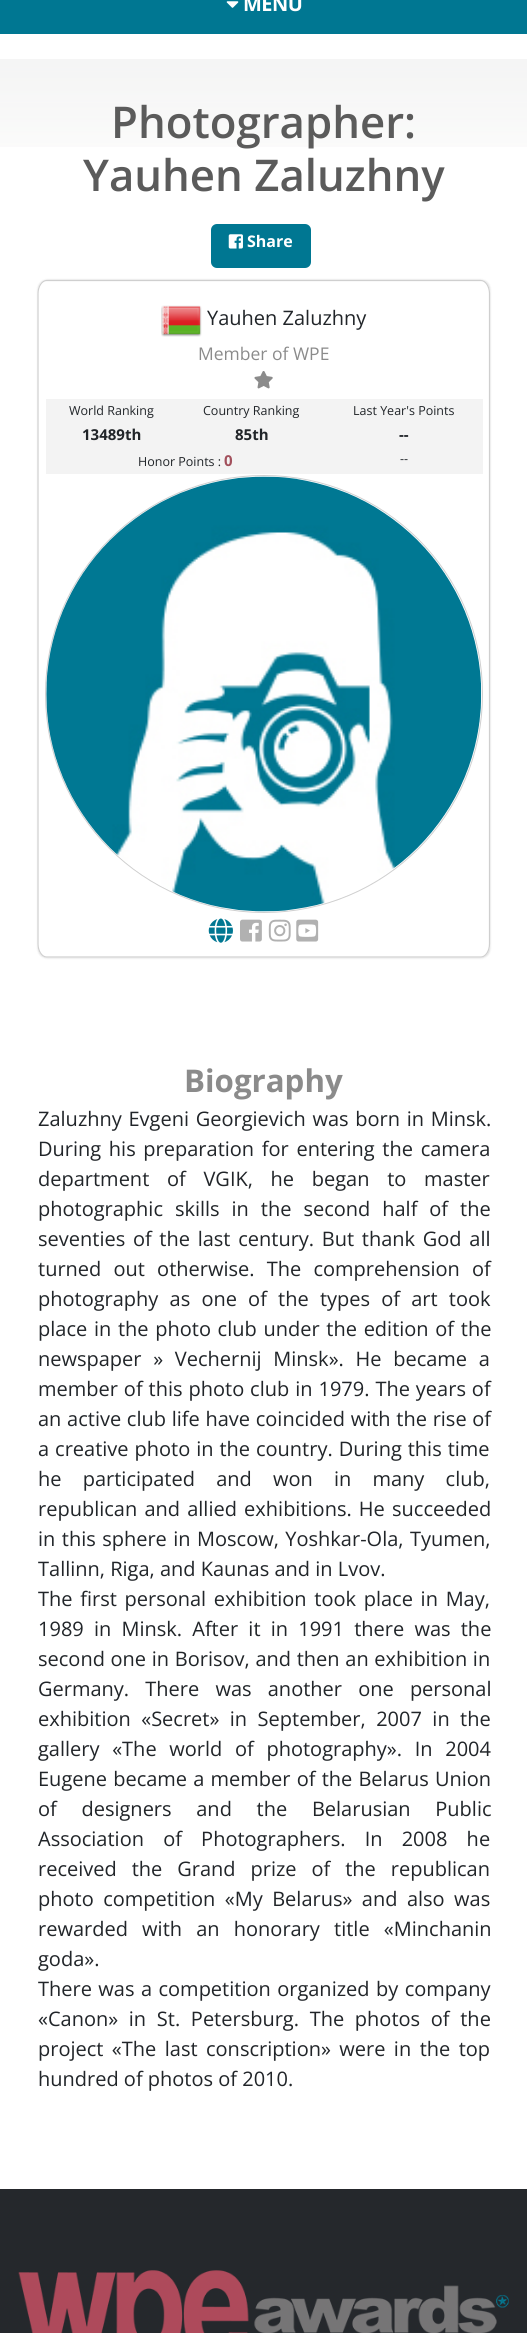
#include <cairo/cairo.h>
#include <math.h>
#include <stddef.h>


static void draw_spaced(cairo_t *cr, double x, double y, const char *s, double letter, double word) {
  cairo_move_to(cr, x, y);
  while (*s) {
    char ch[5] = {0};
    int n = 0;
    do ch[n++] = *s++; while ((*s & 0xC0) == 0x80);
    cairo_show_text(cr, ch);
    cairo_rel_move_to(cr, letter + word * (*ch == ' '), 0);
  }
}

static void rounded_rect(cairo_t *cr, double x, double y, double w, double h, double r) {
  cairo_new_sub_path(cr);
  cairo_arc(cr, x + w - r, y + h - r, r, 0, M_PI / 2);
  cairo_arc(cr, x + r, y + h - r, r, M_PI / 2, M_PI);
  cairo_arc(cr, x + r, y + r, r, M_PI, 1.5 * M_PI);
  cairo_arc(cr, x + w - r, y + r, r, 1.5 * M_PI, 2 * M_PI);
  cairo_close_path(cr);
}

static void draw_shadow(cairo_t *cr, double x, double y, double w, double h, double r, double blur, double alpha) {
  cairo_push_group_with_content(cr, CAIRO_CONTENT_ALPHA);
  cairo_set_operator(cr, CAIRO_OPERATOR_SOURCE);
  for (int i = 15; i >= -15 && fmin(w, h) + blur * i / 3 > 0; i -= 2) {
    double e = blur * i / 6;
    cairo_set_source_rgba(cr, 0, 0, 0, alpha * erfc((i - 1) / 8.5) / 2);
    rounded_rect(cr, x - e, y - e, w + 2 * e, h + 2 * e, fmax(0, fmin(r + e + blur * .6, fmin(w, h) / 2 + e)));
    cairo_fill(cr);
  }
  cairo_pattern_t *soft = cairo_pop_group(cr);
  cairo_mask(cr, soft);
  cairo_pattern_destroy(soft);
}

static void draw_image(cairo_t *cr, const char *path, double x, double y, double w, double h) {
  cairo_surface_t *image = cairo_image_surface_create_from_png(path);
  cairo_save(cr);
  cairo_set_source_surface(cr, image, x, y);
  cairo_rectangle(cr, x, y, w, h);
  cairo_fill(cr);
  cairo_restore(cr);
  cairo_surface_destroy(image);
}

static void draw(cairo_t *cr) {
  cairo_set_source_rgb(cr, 1, 1, 1);
  cairo_paint(cr);
  cairo_set_source_rgb(cr, 0, 119 / 255.0, 146 / 255.0);
  cairo_rectangle(cr, 0, 0, 527, 34);
  cairo_fill(cr);
  draw_image(cr, "images/1.png", 226, 1, 13, 7);
  draw_image(cr, "images/2.png", 0, 59, 527, 88);
  rounded_rect(cr, 211, 224, 100, 44, 6);
  cairo_fill(cr);
  draw_image(cr, "images/3.png", 228, 234, 15, 15);
  cairo_save(cr);
  cairo_set_fill_rule(cr, CAIRO_FILL_RULE_EVEN_ODD);
  cairo_new_path(cr);
  cairo_move_to(cr, 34, 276);
  cairo_line_to(cr, 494, 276);
  cairo_line_to(cr, 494, 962);
  cairo_line_to(cr, 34, 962);
  cairo_close_path(cr);
  cairo_move_to(cr, 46.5, 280);
  cairo_line_to(cr, 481, 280);
  cairo_curve_to(cr, 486, 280, 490, 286, 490, 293.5);
  cairo_line_to(cr, 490, 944);
  cairo_curve_to(cr, 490, 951.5, 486, 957.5, 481, 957.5);
  cairo_line_to(cr, 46.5, 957.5);
  cairo_curve_to(cr, 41.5, 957.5, 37.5, 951.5, 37.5, 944);
  cairo_line_to(cr, 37.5, 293.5);
  cairo_curve_to(cr, 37.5, 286, 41.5, 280, 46.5, 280);
  cairo_close_path(cr);
  cairo_clip(cr);
  cairo_set_source_rgb(cr, 0, 0, 0);
  draw_shadow(cr, 38, 280, 452, 678, 9, 1, 0.15);
  cairo_restore(cr);
  cairo_new_path(cr);
  cairo_move_to(cr, 46.5, 280.5);
  cairo_line_to(cr, 481, 280.5);
  cairo_curve_to(cr, 485.5, 280.5, 489.5, 286.5, 489.5, 293.5);
  cairo_line_to(cr, 489.5, 944);
  cairo_curve_to(cr, 489.5, 951, 485.5, 957, 481, 957);
  cairo_line_to(cr, 46.5, 957);
  cairo_curve_to(cr, 42, 957, 38, 951, 38, 944);
  cairo_line_to(cr, 38, 293.5);
  cairo_curve_to(cr, 38, 286.5, 42, 280.5, 46.5, 280.5);
  cairo_close_path(cr);
  cairo_set_source_rgb(cr, 207 / 255.0, 207 / 255.0, 207 / 255.0);
  cairo_set_line_width(cr, 1.2);
  cairo_stroke(cr);
  draw_image(cr, "images/4.png", 161, 305, 41, 32);
  draw_image(cr, "images/5.png", 254, 371, 19, 18);
  cairo_set_source_rgb(cr, 243 / 255.0, 243 / 255.0, 243 / 255.0);
  cairo_rectangle(cr, 46, 399, 437, 22);
  cairo_fill(cr);
  cairo_rectangle(cr, 46, 421, 437, 27);
  cairo_fill(cr);
  cairo_rectangle(cr, 46, 448, 437, 26);
  cairo_fill(cr);
  cairo_arc(cr, 264, 694, 218.5, 0, 2 * M_PI);
  cairo_set_source_rgb(cr, 207 / 255.0, 207 / 255.0, 207 / 255.0);
  cairo_set_line_width(cr, 1);
  cairo_stroke(cr);
  draw_image(cr, "images/6.png", 46, 476, 436, 436);
  draw_image(cr, "images/7.png", 208, 918, 25, 25);
  draw_image(cr, "images/8.png", 240, 919, 22, 23);
  draw_image(cr, "images/9.png", 268, 919, 23, 23);
  draw_image(cr, "images/10.png", 296, 919, 23, 23);
  cairo_set_source_rgb(cr, 37 / 255.0, 40 / 255.0, 44 / 255.0);
  cairo_rectangle(cr, 0, 2189, 527, 144);
  cairo_fill(cr);
  draw_image(cr, "images/11.png", 18, 2270, 491, 63);
  cairo_select_font_face(cr, "Open Sans", CAIRO_FONT_SLANT_NORMAL, CAIRO_FONT_WEIGHT_BOLD);
  cairo_set_font_size(cr, 20);
  cairo_set_source_rgb(cr, 1, 1, 1);
  draw_spaced(cr, 243, 11, "MENU", -0.5, 0);
  cairo_select_font_face(cr, "Open Sans SemiBold", CAIRO_FONT_SLANT_NORMAL, CAIRO_FONT_WEIGHT_NORMAL);
  cairo_set_font_size(cr, 43.75);
  cairo_set_source_rgb(cr, 91 / 255.0, 91 / 255.0, 91 / 255.0);
  cairo_move_to(cr, 111, 138);
  cairo_show_text(cr, "Photographer:");
  cairo_move_to(cr, 83, 191);
  cairo_show_text(cr, "Yauhen Zaluzhny");
  cairo_select_font_face(cr, "Open Sans", CAIRO_FONT_SLANT_NORMAL, CAIRO_FONT_WEIGHT_BOLD);
  cairo_set_font_size(cr, 16);
  cairo_set_source_rgb(cr, 1, 1, 1);
  cairo_move_to(cr, 247, 247);
  cairo_show_text(cr, "Share");
  cairo_select_font_face(cr, "Open Sans", CAIRO_FONT_SLANT_NORMAL, CAIRO_FONT_WEIGHT_NORMAL);
  cairo_set_font_size(cr, 20);
  cairo_set_source_rgb(cr, 33 / 255.0, 37 / 255.0, 41 / 255.0);
  cairo_move_to(cr, 207, 325);
  cairo_show_text(cr, "Yauhen Zaluzhny");
  cairo_set_font_size(cr, 17.5);
  cairo_set_source_rgb(cr, 139 / 255.0, 139 / 255.0, 139 / 255.0);
  cairo_move_to(cr, 198, 360);
  cairo_show_text(cr, "Member of WPE");
  cairo_set_font_size(cr, 12.5);
  cairo_set_source_rgb(cr, 33 / 255.0, 37 / 255.0, 41 / 255.0);
  cairo_move_to(cr, 69, 415);
  cairo_show_text(cr, "World Ranking");
  cairo_move_to(cr, 203, 415);
  cairo_show_text(cr, "Country Ranking");
  cairo_move_to(cr, 353, 415);
  cairo_show_text(cr, "Last Year's Points");
  cairo_select_font_face(cr, "Open Sans", CAIRO_FONT_SLANT_NORMAL, CAIRO_FONT_WEIGHT_BOLD);
  cairo_set_font_size(cr, 15);
  cairo_move_to(cr, 82, 440);
  cairo_show_text(cr, "13489th");
  cairo_move_to(cr, 235, 440);
  cairo_show_text(cr, "85th");
  cairo_move_to(cr, 399, 440);
  cairo_show_text(cr, "--");
  cairo_select_font_face(cr, "Open Sans", CAIRO_FONT_SLANT_NORMAL, CAIRO_FONT_WEIGHT_NORMAL);
  cairo_set_font_size(cr, 12.5);
  cairo_move_to(cr, 138, 466);
  cairo_show_text(cr, "Honor Points :");
  cairo_select_font_face(cr, "Open Sans", CAIRO_FONT_SLANT_NORMAL, CAIRO_FONT_WEIGHT_BOLD);
  cairo_set_font_size(cr, 15);
  cairo_set_source_rgb(cr, 162 / 255.0, 80 / 255.0, 92 / 255.0);
  cairo_move_to(cr, 224, 466);
  cairo_show_text(cr, "0");
  cairo_select_font_face(cr, "Open Sans", CAIRO_FONT_SLANT_NORMAL, CAIRO_FONT_WEIGHT_NORMAL);
  cairo_set_font_size(cr, 12.5);
  cairo_set_source_rgb(cr, 33 / 255.0, 37 / 255.0, 41 / 255.0);
  cairo_move_to(cr, 400, 463);
  cairo_show_text(cr, "--");
  cairo_select_font_face(cr, "Open Sans", CAIRO_FONT_SLANT_NORMAL, CAIRO_FONT_WEIGHT_BOLD);
  cairo_set_font_size(cr, 31.25);
  cairo_set_source_rgb(cr, 139 / 255.0, 139 / 255.0, 139 / 255.0);
  cairo_move_to(cr, 184, 1092);
  cairo_show_text(cr, "Biography");
  cairo_select_font_face(cr, "Open Sans", CAIRO_FONT_SLANT_NORMAL, CAIRO_FONT_WEIGHT_NORMAL);
  cairo_set_font_size(cr, 20);
  cairo_set_source_rgb(cr, 33 / 255.0, 37 / 255.0, 41 / 255.0);
  draw_spaced(cr, 38, 1126, "Zaluzhny Evgeni Georgievich was born in Minsk.", 0, 1.5);
  draw_spaced(cr, 38, 1156, "During his preparation for entering the camera", 0, 2.5);
  draw_spaced(cr, 38, 1186, "department of VGIK, he began to master", 0, 12.5);
  draw_spaced(cr, 38, 1216, "photographic skills in the second half of the", 0, 6.75);
  draw_spaced(cr, 38, 1246, "seventies of the last century. But thank God all", 0, 2.5);
  draw_spaced(cr, 38, 1276, "turned out otherwise. The comprehension of", 0, 7);
  draw_spaced(cr, 38, 1306, "photography as one of the types of art took", 0, 6);
  draw_spaced(cr, 38, 1336, "place in the photo club under the edition of the", 0, 1.5);
  draw_spaced(cr, 38, 1366, "newspaper » Vechernij Minsk». He became a", 0, 6.5);
  draw_spaced(cr, 38, 1396, "member of this photo club in 1979. The years of", 0, 0.75);
  draw_spaced(cr, 38, 1426, "an active club life have coincided with the rise of", 0, 0.5);
  draw_spaced(cr, 38, 1456, "a creative photo in the country. During this time", 0, 0.75);
  draw_spaced(cr, 38, 1486, "he participated and won in many club,", 0, 16);
  draw_spaced(cr, 38, 1516, "republican and allied exhibitions. He succeeded", 0, 2);
  draw_spaced(cr, 38, 1546, "in this sphere in Moscow, Yoshkar-Ola, Tyumen,", 0, 1.25);
  cairo_move_to(cr, 38, 1576);
  cairo_show_text(cr, "Tallinn, Riga, and Kaunas and in Lvov.");
  draw_spaced(cr, 38, 1606, "The first personal exhibition took place in May,", 0, 2.5);
  draw_spaced(cr, 38, 1636, "1989 in Minsk. After it in 1991 there was the", 0, 5);
  draw_spaced(cr, 38, 1666, "second one in Borisov, and then an exhibition in", 0, 0.5);
  draw_spaced(cr, 38, 1696, "Germany. There was another one personal", 0, 11);
  draw_spaced(cr, 38, 1726, "exhibition «Secret» in September, 2007 in the", 0, 5.25);
  draw_spaced(cr, 38, 1756, "gallery «The world of photography». In 2004", 0, 7.5);
  draw_spaced(cr, 38, 1786, "Eugene became a member of the Belarus Union", 0, 1);
  draw_spaced(cr, 38, 1816, "of designers and the Belarusian Public", 0, 19.5);
  draw_spaced(cr, 38, 1846, "Association of Photographers. In 2008 he", 0, 14);
  draw_spaced(cr, 38, 1876, "received the Grand prize of the republican", 0, 9.75);
  draw_spaced(cr, 38, 1906, "photo competition «My Belarus» and also was", 0, 4.25);
  draw_spaced(cr, 38, 1936, "rewarded with an honorary title «Minchanin", 0, 9);
  cairo_move_to(cr, 38, 1966);
  cairo_show_text(cr, "goda».");
  draw_spaced(cr, 38, 1996, "There was a competition organized by company", 0, 1.25);
  draw_spaced(cr, 38, 2026, "«Canon» in St. Petersburg. The photos of the", 0, 5.5);
  draw_spaced(cr, 38, 2056, "project «The last conscription» were in the top", 0, 3.25);
  cairo_move_to(cr, 38, 2086);
  cairo_show_text(cr, "hundred of photos of 2010.");
}

int main(void) {
  cairo_surface_t *surface = cairo_image_surface_create(CAIRO_FORMAT_RGB24, 527, 2333);
  cairo_t *cr = cairo_create(surface);
  cairo_font_options_t *options = cairo_font_options_create();
  cairo_font_options_set_hint_metrics(options, CAIRO_HINT_METRICS_OFF);
  cairo_font_options_set_hint_style(options, CAIRO_HINT_STYLE_NONE);
  cairo_set_font_options(cr, options);
  cairo_set_miter_limit(cr, 4);
  draw(cr);
  cairo_surface_write_to_png(surface, "out.png");
  cairo_font_options_destroy(options);
  cairo_destroy(cr);
  cairo_surface_destroy(surface);
  return 0;
}
